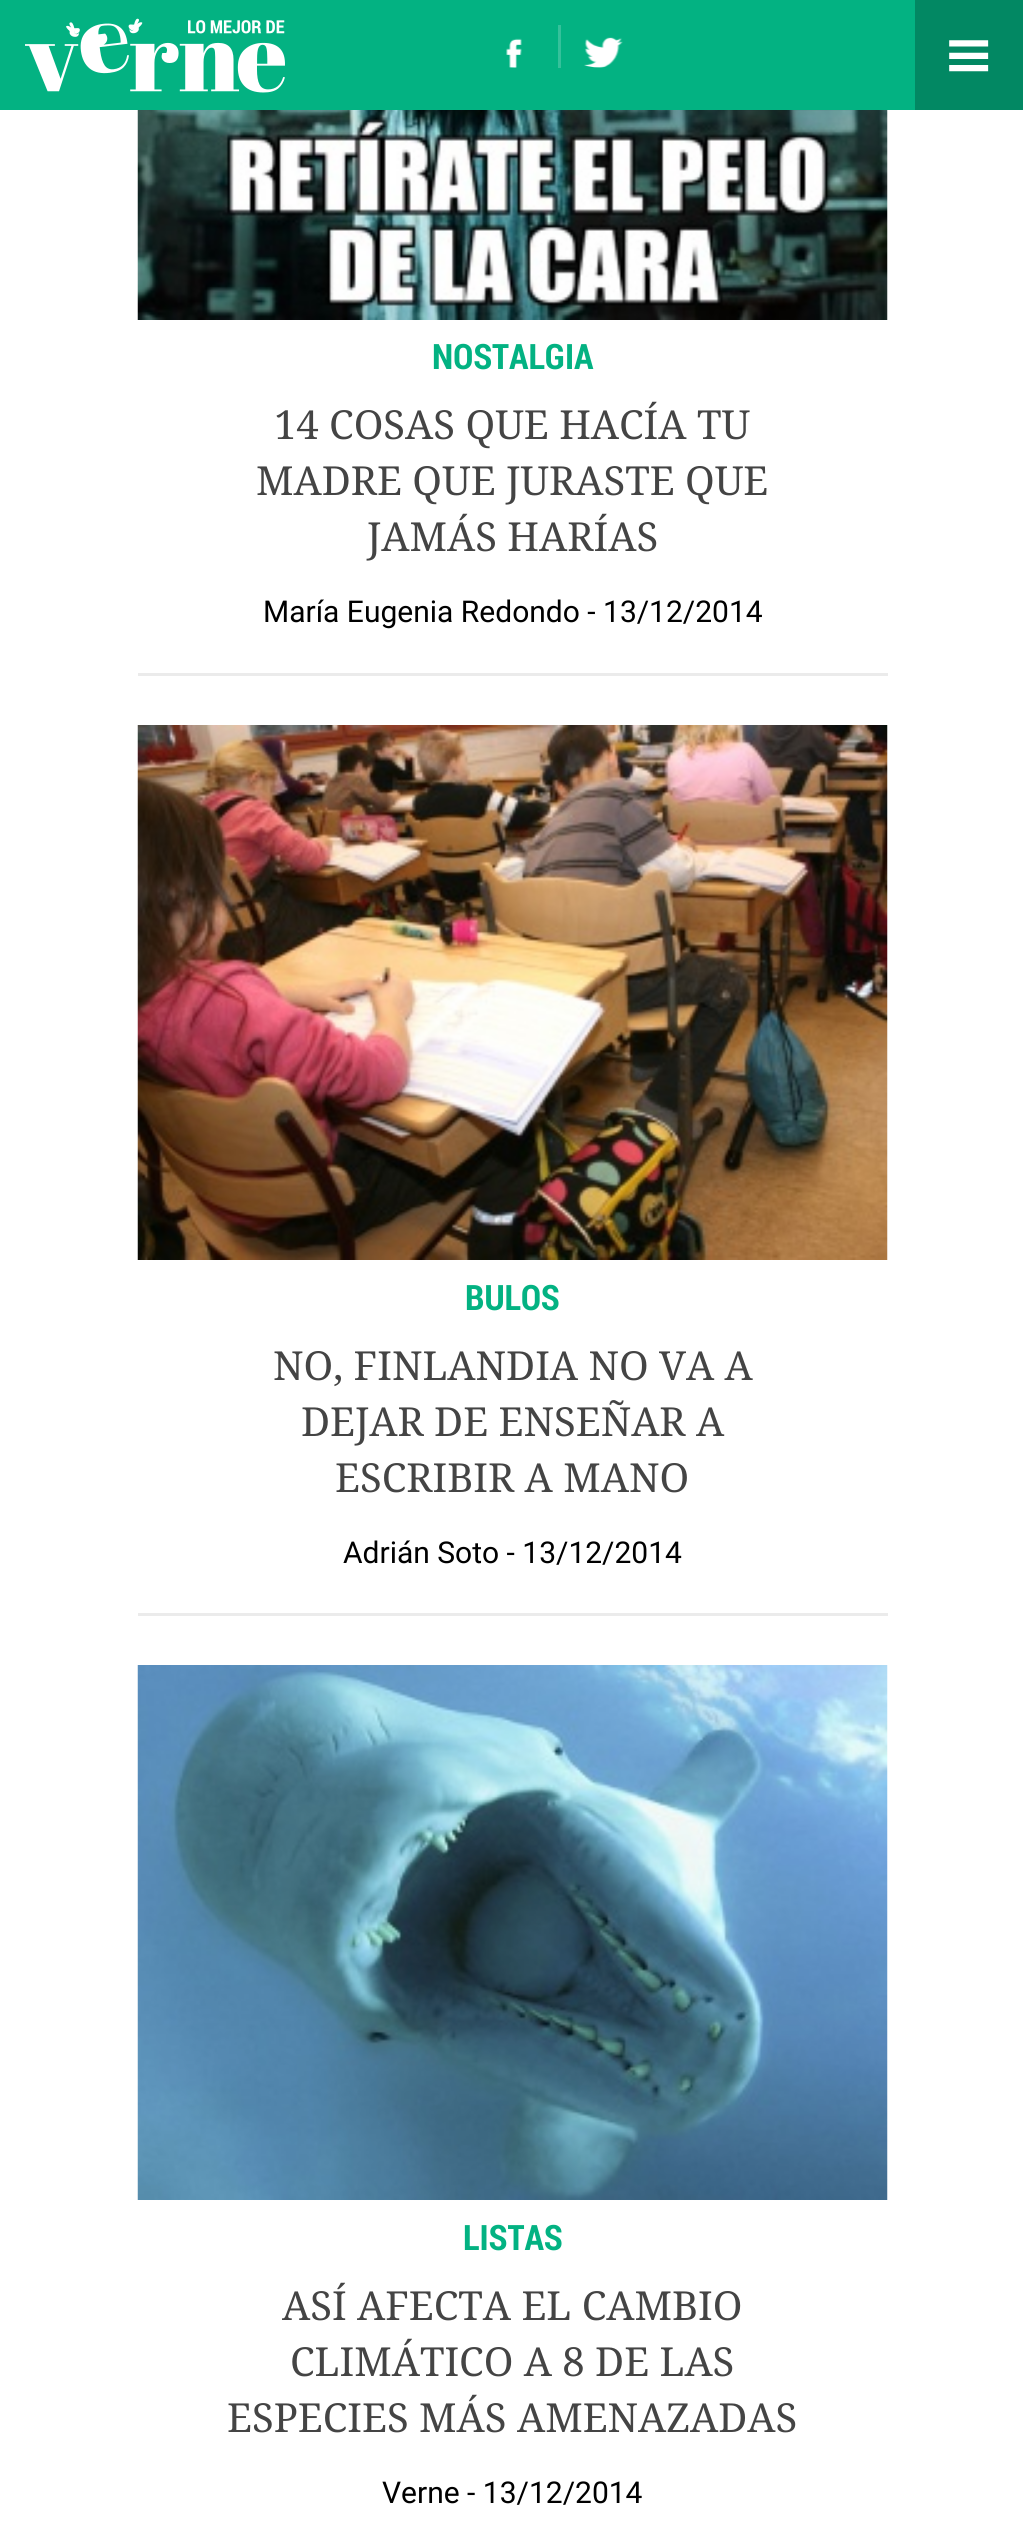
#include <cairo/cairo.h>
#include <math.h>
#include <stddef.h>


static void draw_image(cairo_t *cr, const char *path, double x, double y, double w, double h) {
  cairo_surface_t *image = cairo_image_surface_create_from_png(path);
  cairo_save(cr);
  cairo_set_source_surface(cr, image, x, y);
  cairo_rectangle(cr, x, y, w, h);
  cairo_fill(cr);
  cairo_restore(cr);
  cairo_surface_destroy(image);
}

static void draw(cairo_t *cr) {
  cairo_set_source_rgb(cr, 1, 1, 1);
  cairo_paint(cr);
  cairo_set_source_rgb(cr, 3 / 255.0, 178 / 255.0, 130 / 255.0);
  cairo_rectangle(cr, 0, 0, 915, 110);
  cairo_fill(cr);
  draw_image(cr, "images/1.png", 25, 18, 260, 75);
  cairo_set_source_rgb(cr, 53 / 255.0, 193 / 255.0, 155 / 255.0);
  cairo_rectangle(cr, 558, 25, 3, 43);
  cairo_fill(cr);
  draw_image(cr, "images/2.png", 506, 38, 16, 30);
  draw_image(cr, "images/3.png", 584, 37, 39, 31);
  cairo_set_source_rgb(cr, 2 / 255.0, 136 / 255.0, 99 / 255.0);
  cairo_rectangle(cr, 915, 0, 108, 110);
  cairo_fill(cr);
  draw_image(cr, "images/4.png", 949, 40, 40, 32);
  cairo_set_source_rgb(cr, 235 / 255.0, 235 / 255.0, 235 / 255.0);
  cairo_rectangle(cr, 138, 673, 750, 3);
  cairo_fill(cr);
  draw_image(cr, "images/5.png", 137, 110, 751, 210);
  cairo_rectangle(cr, 138, 1613, 750, 3);
  cairo_fill(cr);
  draw_image(cr, "images/6.png", 137, 725, 751, 535);
  draw_image(cr, "images/7.png", 137, 1665, 751, 535);
  cairo_select_font_face(cr, "Roboto Condensed", CAIRO_FONT_SLANT_NORMAL, CAIRO_FONT_WEIGHT_BOLD);
  cairo_set_font_size(cr, 35);
  cairo_set_source_rgb(cr, 3 / 255.0, 178 / 255.0, 130 / 255.0);
  cairo_move_to(cr, 432, 369);
  cairo_show_text(cr, "NOSTALGIA");
  cairo_select_font_face(cr, "Droid Serif", CAIRO_FONT_SLANT_NORMAL, CAIRO_FONT_WEIGHT_NORMAL);
  cairo_set_font_size(cr, 40);
  cairo_set_source_rgb(cr, 68 / 255.0, 68 / 255.0, 68 / 255.0);
  cairo_move_to(cr, 274, 439);
  cairo_show_text(cr, "14 COSAS QUE HACÍA TU");
  cairo_move_to(cr, 256, 495);
  cairo_show_text(cr, "MADRE QUE JURASTE QUE");
  cairo_move_to(cr, 367, 551);
  cairo_show_text(cr, "JAMÁS HARÍAS");
  cairo_select_font_face(cr, "Roboto", CAIRO_FONT_SLANT_NORMAL, CAIRO_FONT_WEIGHT_NORMAL);
  cairo_set_font_size(cr, 30);
  cairo_set_source_rgb(cr, 0, 0, 0);
  cairo_move_to(cr, 263, 622);
  cairo_show_text(cr, "María Eugenia Redondo - 13/12/2014");
  cairo_select_font_face(cr, "Roboto Condensed", CAIRO_FONT_SLANT_NORMAL, CAIRO_FONT_WEIGHT_BOLD);
  cairo_set_font_size(cr, 35);
  cairo_set_source_rgb(cr, 3 / 255.0, 178 / 255.0, 130 / 255.0);
  cairo_move_to(cr, 465, 1310);
  cairo_show_text(cr, "BULOS");
  cairo_select_font_face(cr, "Droid Serif", CAIRO_FONT_SLANT_NORMAL, CAIRO_FONT_WEIGHT_NORMAL);
  cairo_set_font_size(cr, 40);
  cairo_set_source_rgb(cr, 68 / 255.0, 68 / 255.0, 68 / 255.0);
  cairo_move_to(cr, 273, 1380);
  cairo_show_text(cr, "NO, FINLANDIA NO VA A");
  cairo_move_to(cr, 301, 1436);
  cairo_show_text(cr, "DEJAR DE ENSEÑAR A");
  cairo_move_to(cr, 335, 1492);
  cairo_show_text(cr, "ESCRIBIR A MANO");
  cairo_select_font_face(cr, "Roboto", CAIRO_FONT_SLANT_NORMAL, CAIRO_FONT_WEIGHT_NORMAL);
  cairo_set_font_size(cr, 30);
  cairo_set_source_rgb(cr, 0, 0, 0);
  cairo_move_to(cr, 343, 1563);
  cairo_show_text(cr, "Adrián Soto - 13/12/2014");
  cairo_select_font_face(cr, "Roboto Condensed", CAIRO_FONT_SLANT_NORMAL, CAIRO_FONT_WEIGHT_BOLD);
  cairo_set_font_size(cr, 35);
  cairo_set_source_rgb(cr, 3 / 255.0, 178 / 255.0, 130 / 255.0);
  cairo_move_to(cr, 463, 2250);
  cairo_show_text(cr, "LISTAS");
  cairo_select_font_face(cr, "Droid Serif", CAIRO_FONT_SLANT_NORMAL, CAIRO_FONT_WEIGHT_NORMAL);
  cairo_set_font_size(cr, 40);
  cairo_set_source_rgb(cr, 68 / 255.0, 68 / 255.0, 68 / 255.0);
  cairo_move_to(cr, 282, 2320);
  cairo_show_text(cr, "ASÍ AFECTA EL CAMBIO");
  cairo_move_to(cr, 290, 2376);
  cairo_show_text(cr, "CLIMÁTICO A 8 DE LAS");
  cairo_move_to(cr, 227, 2432);
  cairo_show_text(cr, "ESPECIES MÁS AMENAZADAS");
  cairo_select_font_face(cr, "Roboto", CAIRO_FONT_SLANT_NORMAL, CAIRO_FONT_WEIGHT_NORMAL);
  cairo_set_font_size(cr, 30);
  cairo_set_source_rgb(cr, 0, 0, 0);
  cairo_move_to(cr, 382, 2503);
  cairo_show_text(cr, "Verne - 13/12/2014");
}

int main(void) {
  cairo_surface_t *surface = cairo_image_surface_create(CAIRO_FORMAT_RGB24, 1023, 2526);
  cairo_t *cr = cairo_create(surface);
  cairo_font_options_t *options = cairo_font_options_create();
  cairo_font_options_set_hint_metrics(options, CAIRO_HINT_METRICS_OFF);
  cairo_font_options_set_hint_style(options, CAIRO_HINT_STYLE_NONE);
  cairo_set_font_options(cr, options);
  cairo_set_miter_limit(cr, 4);
  draw(cr);
  cairo_surface_write_to_png(surface, "out.png");
  cairo_font_options_destroy(options);
  cairo_destroy(cr);
  cairo_surface_destroy(surface);
  return 0;
}
